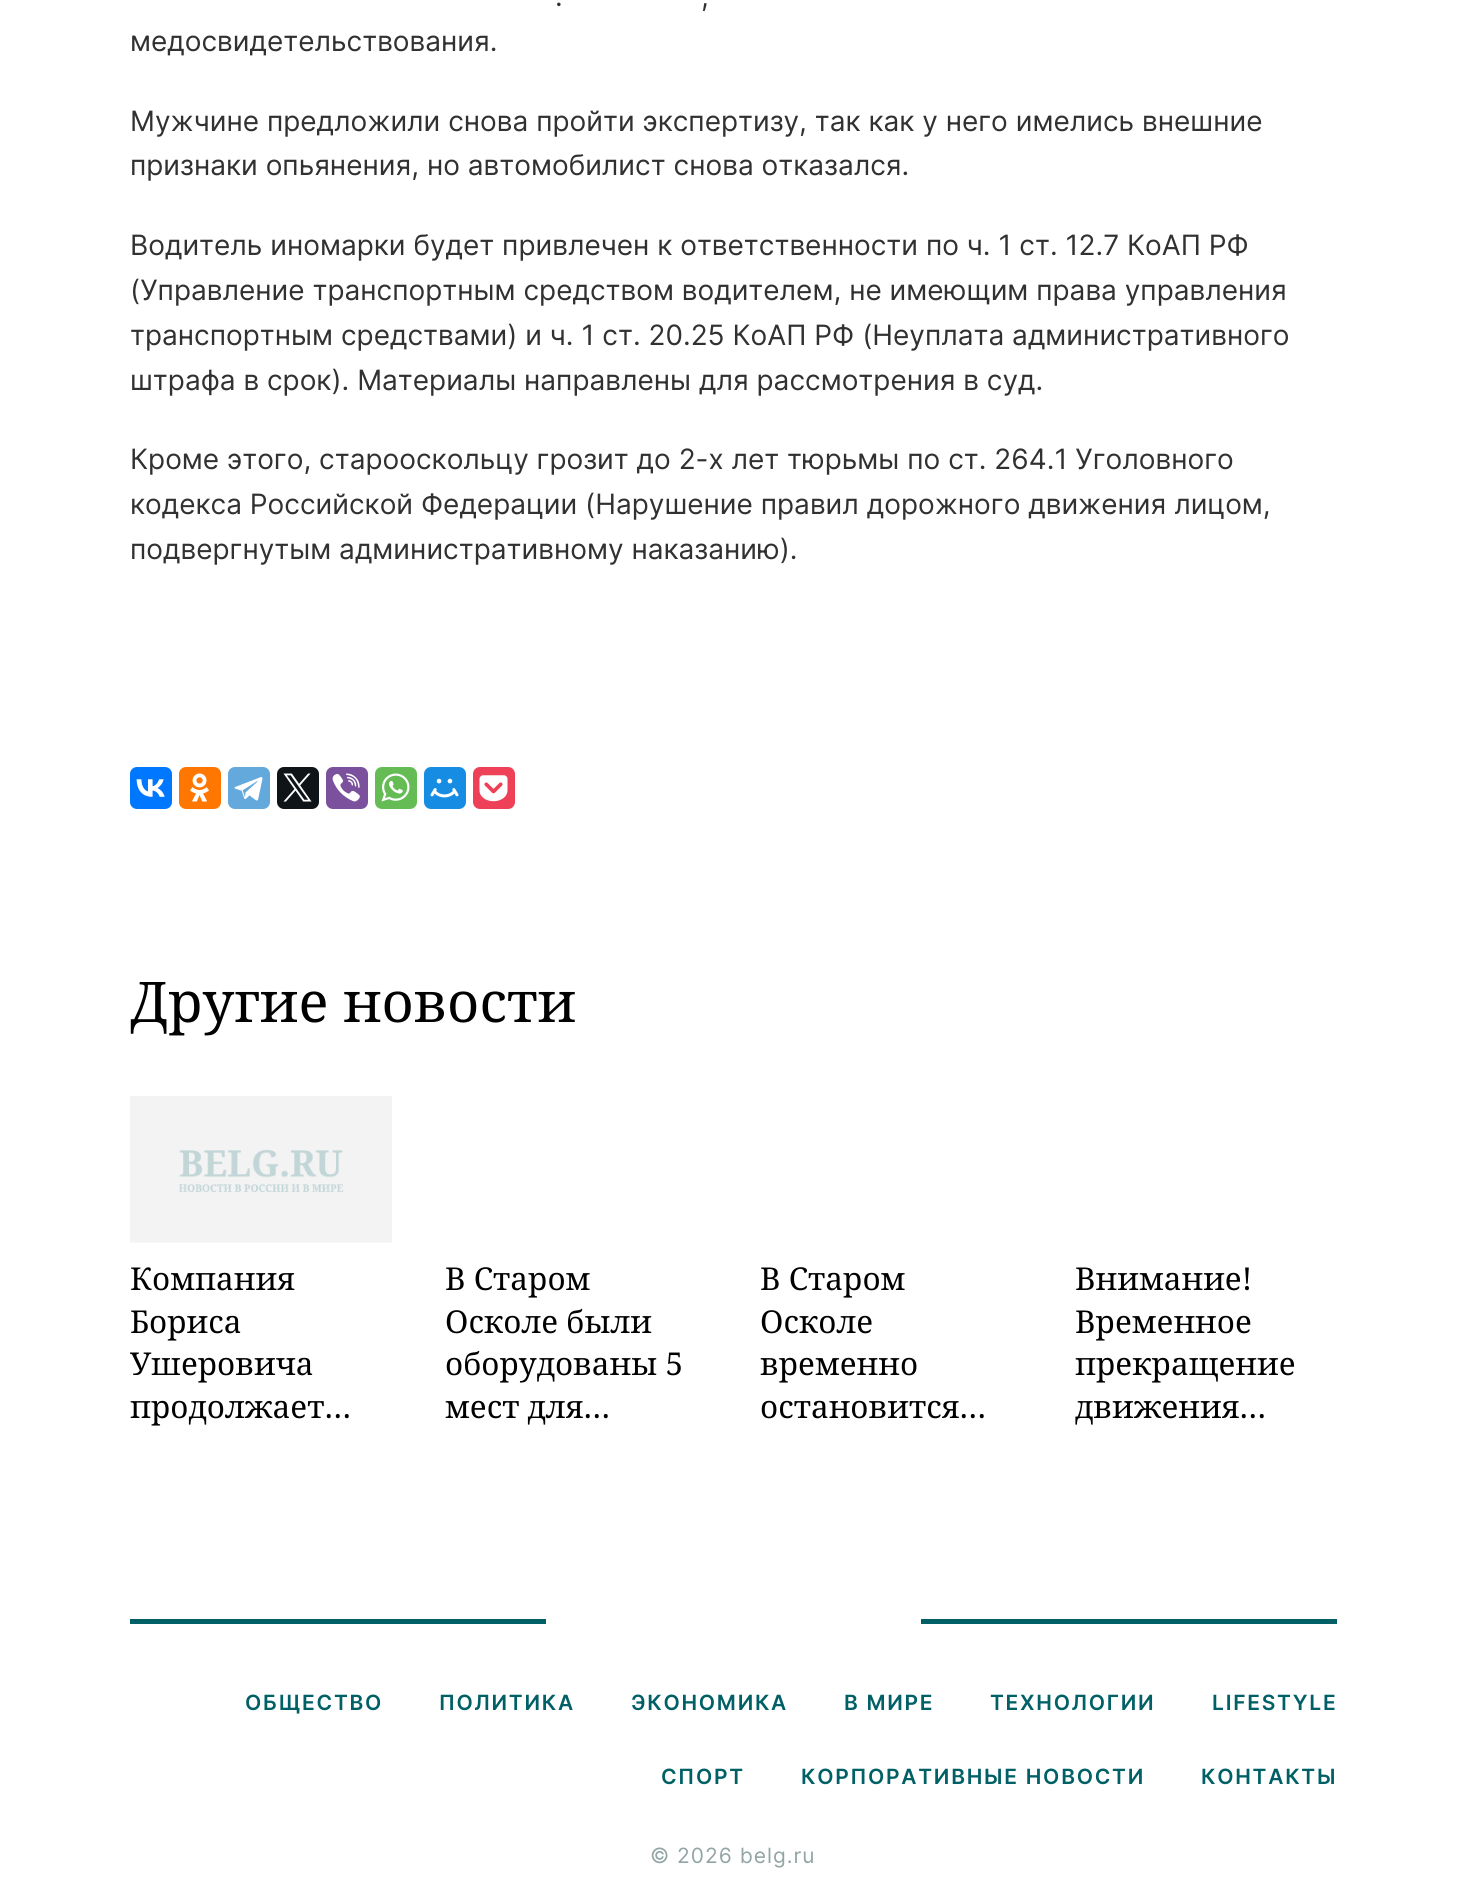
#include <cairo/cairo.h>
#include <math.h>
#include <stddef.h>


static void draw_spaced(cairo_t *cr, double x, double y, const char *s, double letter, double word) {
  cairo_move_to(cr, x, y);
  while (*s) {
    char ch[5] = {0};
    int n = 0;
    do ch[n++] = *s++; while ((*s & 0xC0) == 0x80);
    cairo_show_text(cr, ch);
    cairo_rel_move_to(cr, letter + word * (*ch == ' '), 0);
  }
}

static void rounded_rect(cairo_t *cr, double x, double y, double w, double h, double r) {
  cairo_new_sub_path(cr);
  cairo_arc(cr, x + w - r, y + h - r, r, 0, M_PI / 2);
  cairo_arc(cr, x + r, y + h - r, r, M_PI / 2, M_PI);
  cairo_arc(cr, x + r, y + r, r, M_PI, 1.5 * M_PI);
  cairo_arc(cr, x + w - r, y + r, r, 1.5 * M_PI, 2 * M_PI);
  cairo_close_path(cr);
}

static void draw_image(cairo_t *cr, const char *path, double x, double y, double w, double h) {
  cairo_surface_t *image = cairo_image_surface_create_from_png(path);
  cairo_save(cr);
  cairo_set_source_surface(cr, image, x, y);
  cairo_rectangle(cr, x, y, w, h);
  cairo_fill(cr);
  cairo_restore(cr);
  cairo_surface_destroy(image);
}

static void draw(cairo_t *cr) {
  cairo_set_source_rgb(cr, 1, 1, 1);
  cairo_paint(cr);
  cairo_set_source_rgb(cr, 0, 119 / 255.0, 1);
  rounded_rect(cr, 130, 767, 42, 42, 7);
  cairo_fill(cr);
  draw_image(cr, "images/1.png", 136, 779, 29, 18);
  cairo_set_source_rgb(cr, 1, 119 / 255.0, 0);
  rounded_rect(cr, 179, 767, 42, 42, 7);
  cairo_fill(cr);
  draw_image(cr, "images/2.png", 190, 773, 19, 29);
  cairo_set_source_rgb(cr, 100 / 255.0, 169 / 255.0, 220 / 255.0);
  rounded_rect(cr, 228, 767, 42, 42, 7);
  cairo_fill(cr);
  draw_image(cr, "images/3.png", 234, 777, 29, 24);
  cairo_set_source_rgb(cr, 15 / 255.0, 20 / 255.0, 25 / 255.0);
  rounded_rect(cr, 277, 767, 42, 42, 7);
  cairo_fill(cr);
  draw_image(cr, "images/4.png", 283, 773, 29, 29);
  cairo_set_source_rgb(cr, 123 / 255.0, 81 / 255.0, 157 / 255.0);
  rounded_rect(cr, 326, 767, 42, 42, 7);
  cairo_fill(cr);
  draw_image(cr, "images/5.png", 332, 773, 28, 29);
  cairo_set_source_rgb(cr, 101 / 255.0, 188 / 255.0, 84 / 255.0);
  rounded_rect(cr, 375, 767, 42, 42, 7);
  cairo_fill(cr);
  draw_image(cr, "images/6.png", 381, 773, 29, 29);
  cairo_set_source_rgb(cr, 22 / 255.0, 141 / 255.0, 226 / 255.0);
  rounded_rect(cr, 424, 767, 42, 42, 7);
  cairo_fill(cr);
  draw_image(cr, "images/7.png", 430, 778, 29, 20);
  cairo_set_source_rgb(cr, 238 / 255.0, 64 / 255.0, 86 / 255.0);
  rounded_rect(cr, 473, 767, 42, 42, 7);
  cairo_fill(cr);
  draw_image(cr, "images/8.png", 479, 775, 29, 27);
  draw_image(cr, "images/9.png", 130, 1096, 262, 147);
  cairo_set_source_rgb(cr, 0, 96 / 255.0, 102 / 255.0);
  cairo_rectangle(cr, 130, 1619, 1207, 5);
  cairo_fill(cr);
  cairo_set_source_rgb(cr, 1, 1, 1);
  cairo_rectangle(cr, 546, 1619, 375, 5);
  cairo_fill(cr);
  cairo_select_font_face(cr, "Inter", CAIRO_FONT_SLANT_NORMAL, CAIRO_FONT_WEIGHT_NORMAL);
  cairo_set_font_size(cr, 28);
  cairo_set_source_rgb(cr, 49 / 255.0, 49 / 255.0, 49 / 255.0);
  cairo_move_to(cr, 555, 6);
  cairo_show_text(cr, ".");
  cairo_move_to(cr, 701, 6);
  cairo_show_text(cr, ",");
  cairo_move_to(cr, 130, 51);
  cairo_show_text(cr, "медосвидетельствования.");
  cairo_move_to(cr, 130, 131);
  cairo_show_text(cr, "Мужчине предложили снова пройти экспертизу, так как у него имелись внешние");
  cairo_move_to(cr, 130, 175);
  cairo_show_text(cr, "признаки опьянения, но автомобилист снова отказался.");
  cairo_move_to(cr, 130, 255);
  cairo_show_text(cr, "Водитель иномарки будет привлечен к ответственности по ч. 1 ст. 12.7 КоАП РФ");
  cairo_move_to(cr, 130, 300);
  cairo_show_text(cr, "(Управление транспортным средством водителем, не имеющим права управления");
  cairo_move_to(cr, 130, 345);
  cairo_show_text(cr, "транспортным средствами) и ч. 1 ст. 20.25 КоАП РФ (Неуплата административного");
  cairo_move_to(cr, 130, 390);
  cairo_show_text(cr, "штрафа в срок). Материалы направлены для рассмотрения в суд.");
  cairo_move_to(cr, 130, 469);
  cairo_show_text(cr, "Кроме этого, старооскольцу грозит до 2-х лет тюрьмы по ст. 264.1 Уголовного");
  cairo_move_to(cr, 130, 514);
  cairo_show_text(cr, "кодекса Российской Федерации (Нарушение правил дорожного движения лицом,");
  cairo_move_to(cr, 130, 559);
  cairo_show_text(cr, "подвергнутым административному наказанию).");
  cairo_select_font_face(cr, "Noto Serif", CAIRO_FONT_SLANT_NORMAL, CAIRO_FONT_WEIGHT_NORMAL);
  cairo_set_font_size(cr, 56);
  cairo_set_source_rgb(cr, 0, 0, 0);
  cairo_move_to(cr, 130, 1022);
  cairo_show_text(cr, "Другие новости");
  cairo_set_font_size(cr, 31.5);
  cairo_move_to(cr, 130, 1290);
  cairo_show_text(cr, "Компания");
  cairo_move_to(cr, 130, 1333);
  cairo_show_text(cr, "Бориса");
  cairo_move_to(cr, 130, 1375);
  cairo_show_text(cr, "Ушеровича");
  cairo_move_to(cr, 130, 1418);
  cairo_show_text(cr, "продолжает…");
  cairo_move_to(cr, 445, 1290);
  cairo_show_text(cr, "В Старом");
  cairo_move_to(cr, 445, 1333);
  cairo_show_text(cr, "Осколе были");
  cairo_move_to(cr, 445, 1375);
  cairo_show_text(cr, "оборудованы 5");
  cairo_move_to(cr, 445, 1418);
  cairo_show_text(cr, "мест для…");
  cairo_move_to(cr, 760, 1290);
  cairo_show_text(cr, "В Старом");
  cairo_move_to(cr, 760, 1333);
  cairo_show_text(cr, "Осколе");
  cairo_move_to(cr, 760, 1375);
  cairo_show_text(cr, "временно");
  cairo_move_to(cr, 760, 1418);
  cairo_show_text(cr, "остановится…");
  cairo_move_to(cr, 1075, 1290);
  cairo_show_text(cr, "Внимание!");
  cairo_move_to(cr, 1075, 1333);
  cairo_show_text(cr, "Временное");
  cairo_move_to(cr, 1075, 1375);
  cairo_show_text(cr, "прекращение");
  cairo_save(cr);
  cairo_rectangle(cr, 1075, 1257, 262, 169);
  cairo_clip(cr);
  cairo_move_to(cr, 1075, 1418);
  cairo_show_text(cr, "движения…");
  cairo_restore(cr);
  cairo_select_font_face(cr, "Inter SemiBold", CAIRO_FONT_SLANT_NORMAL, CAIRO_FONT_WEIGHT_NORMAL);
  cairo_set_font_size(cr, 21);
  cairo_set_source_rgb(cr, 0, 96 / 255.0, 102 / 255.0);
  draw_spaced(cr, 245, 1710, "ОБЩЕСТВО", 1.75, 0);
  draw_spaced(cr, 439, 1710, "ПОЛИТИКА", 1.75, 0);
  draw_spaced(cr, 631, 1710, "ЭКОНОМИКА", 1.75, 0);
  draw_spaced(cr, 844, 1710, "В МИРЕ", 1.75, 0);
  draw_spaced(cr, 990, 1710, "ТЕХНОЛОГИИ", 1.75, 0);
  draw_spaced(cr, 1212, 1710, "LIFESTYLE", 1.75, 0);
  draw_spaced(cr, 661, 1784, "СПОРТ", 1.75, 0);
  draw_spaced(cr, 801, 1784, "КОРПОРАТИВНЫЕ НОВОСТИ", 1.75, 0);
  draw_spaced(cr, 1201, 1784, "КОНТАКТЫ", 1.75, 0);
  cairo_select_font_face(cr, "Inter", CAIRO_FONT_SLANT_NORMAL, CAIRO_FONT_WEIGHT_NORMAL);
  cairo_set_source_rgb(cr, 146 / 255.0, 164 / 255.0, 164 / 255.0);
  draw_spaced(cr, 650, 1863, "© 2026 belg.ru", 1, 0);
}

int main(void) {
  cairo_surface_t *surface = cairo_image_surface_create(CAIRO_FORMAT_RGB24, 1466, 1902);
  cairo_t *cr = cairo_create(surface);
  cairo_font_options_t *options = cairo_font_options_create();
  cairo_font_options_set_hint_metrics(options, CAIRO_HINT_METRICS_OFF);
  cairo_font_options_set_hint_style(options, CAIRO_HINT_STYLE_NONE);
  cairo_set_font_options(cr, options);
  cairo_set_miter_limit(cr, 4);
  draw(cr);
  cairo_surface_write_to_png(surface, "out.png");
  cairo_font_options_destroy(options);
  cairo_destroy(cr);
  cairo_surface_destroy(surface);
  return 0;
}
